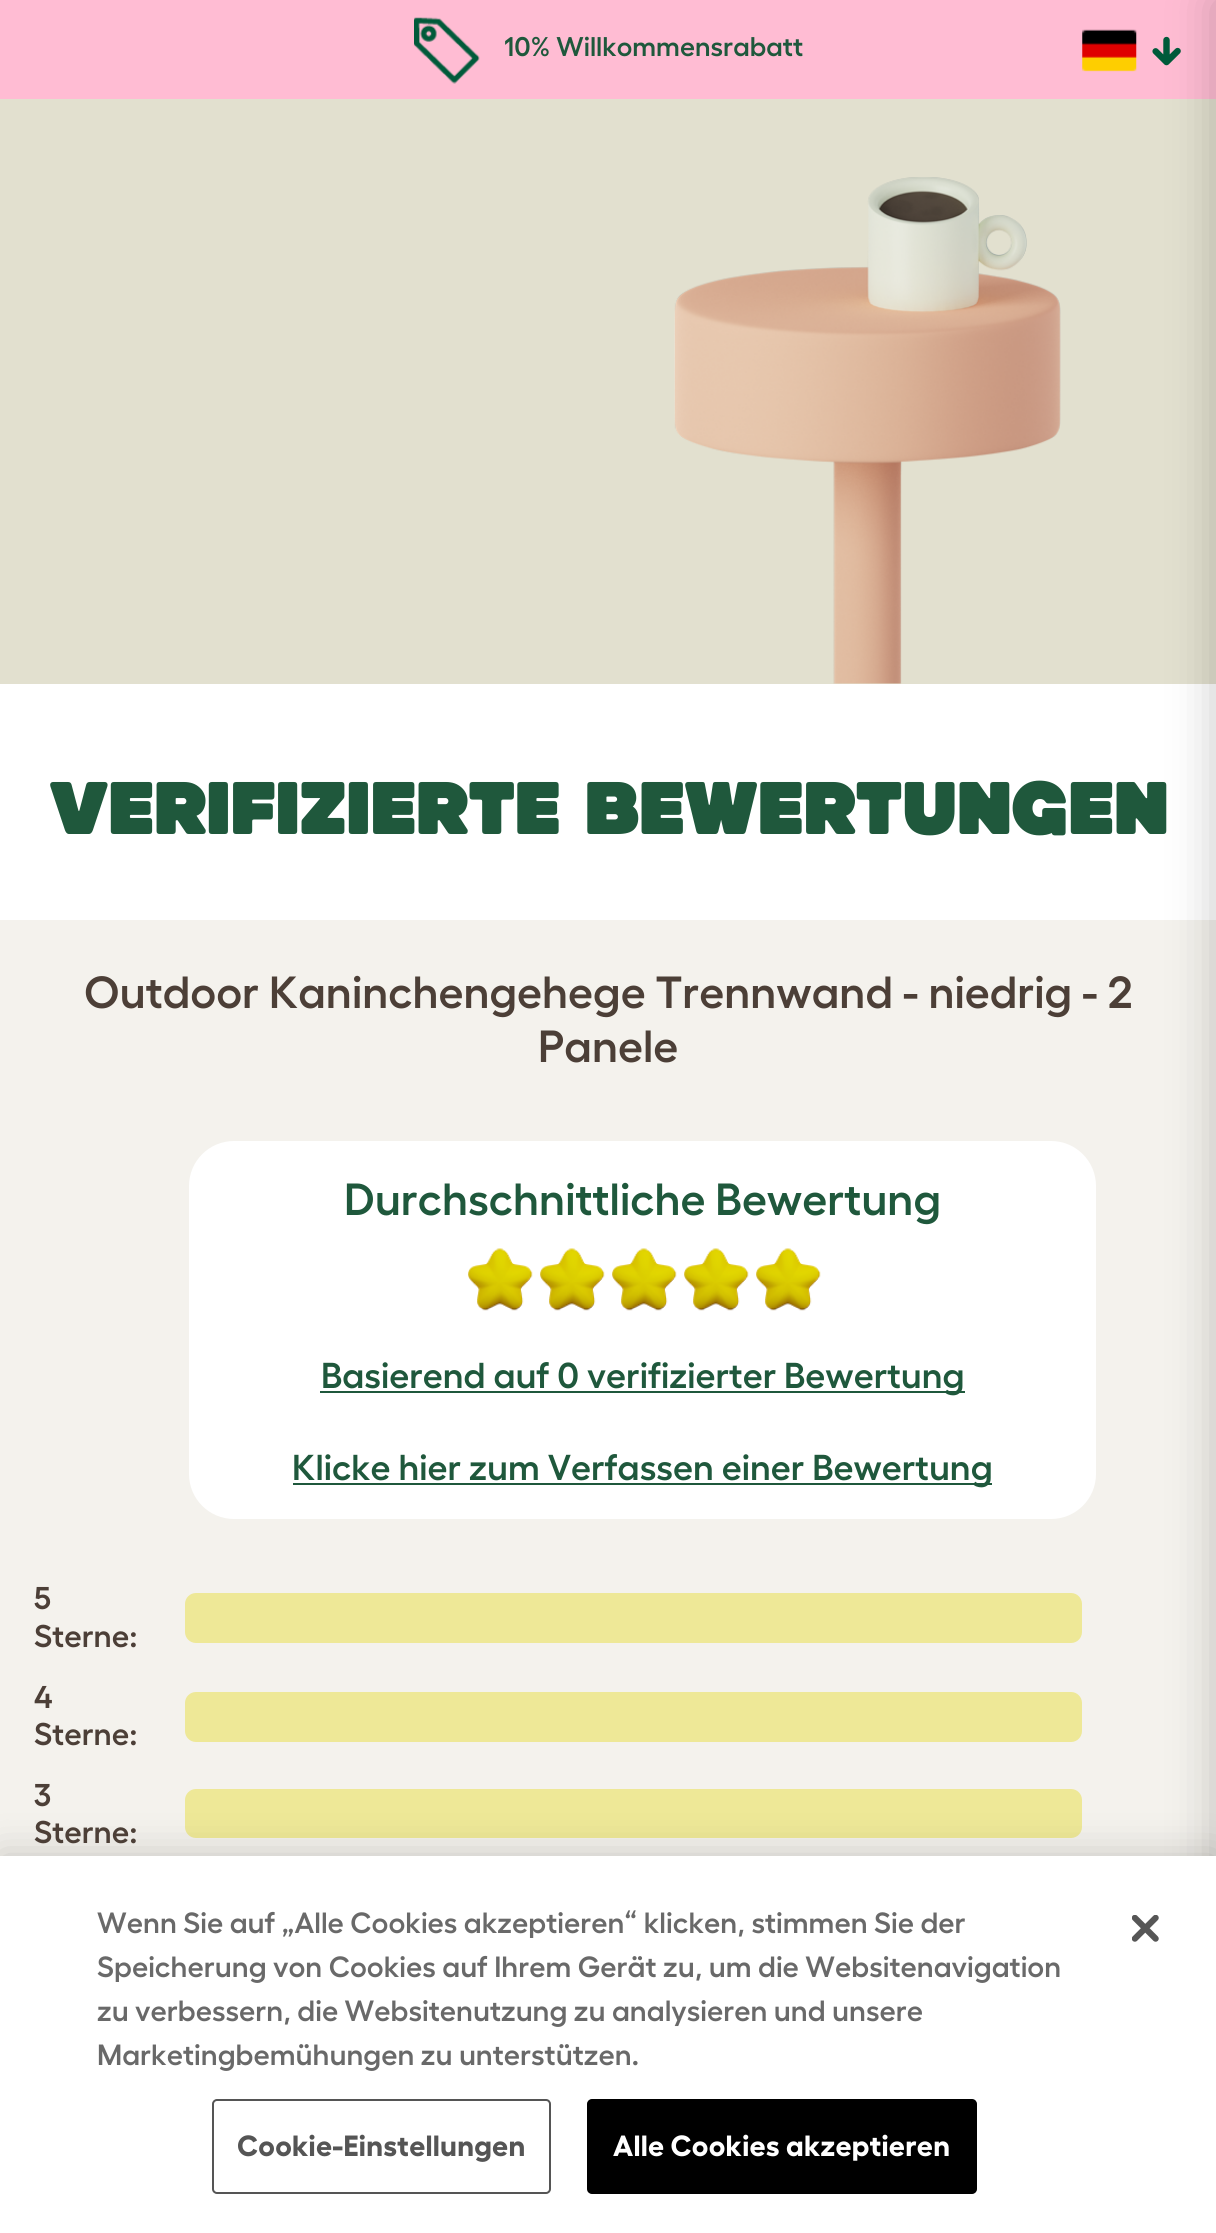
#include <cairo/cairo.h>
#include <math.h>
#include <stddef.h>


static void draw_spaced(cairo_t *cr, double x, double y, const char *s, double letter, double word) {
  cairo_move_to(cr, x, y);
  while (*s) {
    char ch[5] = {0};
    int n = 0;
    do ch[n++] = *s++; while ((*s & 0xC0) == 0x80);
    cairo_show_text(cr, ch);
    cairo_rel_move_to(cr, letter + word * (*ch == ' '), 0);
  }
}

static void rounded_rect(cairo_t *cr, double x, double y, double w, double h, double r) {
  cairo_new_sub_path(cr);
  cairo_arc(cr, x + w - r, y + h - r, r, 0, M_PI / 2);
  cairo_arc(cr, x + r, y + h - r, r, M_PI / 2, M_PI);
  cairo_arc(cr, x + r, y + r, r, M_PI, 1.5 * M_PI);
  cairo_arc(cr, x + w - r, y + r, r, 1.5 * M_PI, 2 * M_PI);
  cairo_close_path(cr);
}

static void draw_shadow(cairo_t *cr, double x, double y, double w, double h, double r, double blur, double alpha) {
  cairo_push_group_with_content(cr, CAIRO_CONTENT_ALPHA);
  cairo_set_operator(cr, CAIRO_OPERATOR_SOURCE);
  for (int i = 15; i >= -15 && fmin(w, h) + blur * i / 3 > 0; i -= 2) {
    double e = blur * i / 6;
    cairo_set_source_rgba(cr, 0, 0, 0, alpha * erfc((i - 1) / 8.5) / 2);
    rounded_rect(cr, x - e, y - e, w + 2 * e, h + 2 * e, fmax(0, fmin(r + e + blur * .6, fmin(w, h) / 2 + e)));
    cairo_fill(cr);
  }
  cairo_pattern_t *soft = cairo_pop_group(cr);
  cairo_mask(cr, soft);
  cairo_pattern_destroy(soft);
}

static void draw_image(cairo_t *cr, const char *path, double x, double y, double w, double h) {
  cairo_surface_t *image = cairo_image_surface_create_from_png(path);
  cairo_save(cr);
  cairo_set_source_surface(cr, image, x, y);
  cairo_rectangle(cr, x, y, w, h);
  cairo_fill(cr);
  cairo_restore(cr);
  cairo_surface_destroy(image);
}

static void draw(cairo_t *cr) {
  cairo_set_source_rgb(cr, 226 / 255.0, 224 / 255.0, 207 / 255.0);
  cairo_paint(cr);
  cairo_set_source_rgb(cr, 1, 188 / 255.0, 211 / 255.0);
  cairo_rectangle(cr, 0, 0, 1216, 99);
  cairo_fill(cr);
  draw_image(cr, "images/1.png", 414, 17, 66, 67);
  draw_image(cr, "images/2.png", 1082, 29, 55, 43);
  draw_image(cr, "images/3.png", 1152, 36, 29, 30);
  draw_image(cr, "images/4.png", 674, 177, 387, 507);
  cairo_set_source_rgb(cr, 244 / 255.0, 242 / 255.0, 237 / 255.0);
  cairo_rectangle(cr, 0, 920, 1216, 936);
  cairo_fill(cr);
  cairo_set_source_rgb(cr, 1, 1, 1);
  cairo_rectangle(cr, 0, 684, 1216, 236);
  cairo_fill(cr);
  rounded_rect(cr, 189, 1141, 907, 378, 45);
  cairo_fill(cr);
  draw_image(cr, "images/5.png", 468, 1248, 65, 63);
  draw_image(cr, "images/6.png", 540, 1248, 65, 63);
  draw_image(cr, "images/7.png", 612, 1248, 65, 63);
  draw_image(cr, "images/7.png", 684, 1248, 65, 63);
  draw_image(cr, "images/7.png", 756, 1248, 65, 63);
  cairo_set_source_rgb(cr, 31 / 255.0, 88 / 255.0, 60 / 255.0);
  cairo_rectangle(cr, 320, 1391, 645, 2);
  cairo_fill(cr);
  cairo_rectangle(cr, 293, 1483, 699, 2);
  cairo_fill(cr);
  cairo_set_source_rgb(cr, 238 / 255.0, 232 / 255.0, 151 / 255.0);
  rounded_rect(cr, 185, 1593, 897, 50, 11);
  cairo_fill(cr);
  rounded_rect(cr, 185, 1692, 897, 50, 11);
  cairo_fill(cr);
  rounded_rect(cr, 185, 1789, 897, 49, 11);
  cairo_fill(cr);
  cairo_set_source_rgb(cr, 0, 0, 0);
  draw_shadow(cr, 1213, 0, 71, 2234, 0, 22.5, 0.2);
  draw_shadow(cr, 0, 1856, 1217, 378, 0, 20, 0.2);
  cairo_set_source_rgb(cr, 1, 1, 1);
  cairo_rectangle(cr, 0, 1856, 1216, 377);
  cairo_fill(cr);
  rounded_rect(cr, 213, 2100, 337, 93, 4);
  cairo_set_source_rgb(cr, 85 / 255.0, 85 / 255.0, 85 / 255.0);
  cairo_stroke(cr);
  cairo_set_source_rgb(cr, 0, 0, 0);
  rounded_rect(cr, 588, 2100, 388, 93, 4);
  cairo_fill_preserve(cr);
  cairo_stroke(cr);
  draw_image(cr, "images/8.png", 1132, 1915, 27, 27);
  cairo_select_font_face(cr, "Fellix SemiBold", CAIRO_FONT_SLANT_NORMAL, CAIRO_FONT_WEIGHT_NORMAL);
  cairo_set_font_size(cr, 27);
  cairo_set_source_rgb(cr, 31 / 255.0, 88 / 255.0, 60 / 255.0);
  cairo_move_to(cr, 504, 56);
  cairo_show_text(cr, "10% Willkommensrabatt");
  cairo_select_font_face(cr, "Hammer", CAIRO_FONT_SLANT_NORMAL, CAIRO_FONT_WEIGHT_BOLD);
  cairo_set_font_size(cr, 76.5);
  draw_spaced(cr, 49, 834, "VERIFIZIERTE BEWERTUNGEN", -1, 0);
  cairo_select_font_face(cr, "Fellix SemiBold", CAIRO_FONT_SLANT_NORMAL, CAIRO_FONT_WEIGHT_NORMAL);
  cairo_set_font_size(cr, 45);
  cairo_set_source_rgb(cr, 76 / 255.0, 63 / 255.0, 55 / 255.0);
  cairo_move_to(cr, 84, 1008);
  cairo_show_text(cr, "Outdoor Kaninchengehege Trennwand - niedrig - 2");
  cairo_move_to(cr, 538, 1062);
  cairo_show_text(cr, "Panele");
  cairo_set_source_rgb(cr, 31 / 255.0, 88 / 255.0, 60 / 255.0);
  cairo_move_to(cr, 344, 1215);
  cairo_show_text(cr, "Durchschnittliche Bewertung");
  cairo_set_font_size(cr, 36);
  cairo_move_to(cr, 321, 1388);
  cairo_show_text(cr, "Basierend auf 0 verifizierter Bewertung");
  cairo_move_to(cr, 292, 1480);
  cairo_show_text(cr, "Klicke hier zum Verfassen einer Bewertung");
  cairo_set_font_size(cr, 31.5);
  cairo_set_source_rgb(cr, 76 / 255.0, 63 / 255.0, 55 / 255.0);
  cairo_move_to(cr, 34, 1609);
  cairo_show_text(cr, "5");
  cairo_move_to(cr, 34, 1647);
  cairo_show_text(cr, "Sterne:");
  cairo_move_to(cr, 34, 1708);
  cairo_show_text(cr, "4");
  cairo_move_to(cr, 34, 1745);
  cairo_show_text(cr, "Sterne:");
  cairo_move_to(cr, 34, 1806);
  cairo_show_text(cr, "3");
  cairo_move_to(cr, 34, 1843);
  cairo_show_text(cr, "Sterne:");
  cairo_set_font_size(cr, 29.25);
  cairo_set_source_rgb(cr, 105 / 255.0, 105 / 255.0, 105 / 255.0);
  cairo_move_to(cr, 97, 1933);
  cairo_show_text(cr, "Wenn Sie auf „Alle Cookies akzeptieren“ klicken, stimmen Sie der");
  cairo_move_to(cr, 97, 1977);
  cairo_show_text(cr, "Speicherung von Cookies auf Ihrem Gerät zu, um die Websitenavigation");
  cairo_move_to(cr, 97, 2021);
  cairo_show_text(cr, "zu verbessern, die Websitenutzung zu analysieren und unsere");
  cairo_move_to(cr, 97, 2065);
  cairo_show_text(cr, "Marketingbemühungen zu unterstützen.");
  cairo_select_font_face(cr, "Fellix", CAIRO_FONT_SLANT_NORMAL, CAIRO_FONT_WEIGHT_BOLD);
  cairo_set_source_rgb(cr, 85 / 255.0, 85 / 255.0, 85 / 255.0);
  draw_spaced(cr, 237, 2156, "Cookie-Einstellungen", 0.25, 0);
  cairo_set_source_rgb(cr, 1, 1, 1);
  draw_spaced(cr, 613, 2156, "Alle Cookies akzeptieren", 0.25, 0);
}

int main(void) {
  cairo_surface_t *surface = cairo_image_surface_create(CAIRO_FORMAT_RGB24, 1216, 2233);
  cairo_t *cr = cairo_create(surface);
  cairo_font_options_t *options = cairo_font_options_create();
  cairo_font_options_set_hint_metrics(options, CAIRO_HINT_METRICS_OFF);
  cairo_font_options_set_hint_style(options, CAIRO_HINT_STYLE_NONE);
  cairo_set_font_options(cr, options);
  cairo_set_miter_limit(cr, 4);
  draw(cr);
  cairo_surface_write_to_png(surface, "out.png");
  cairo_font_options_destroy(options);
  cairo_destroy(cr);
  cairo_surface_destroy(surface);
  return 0;
}
